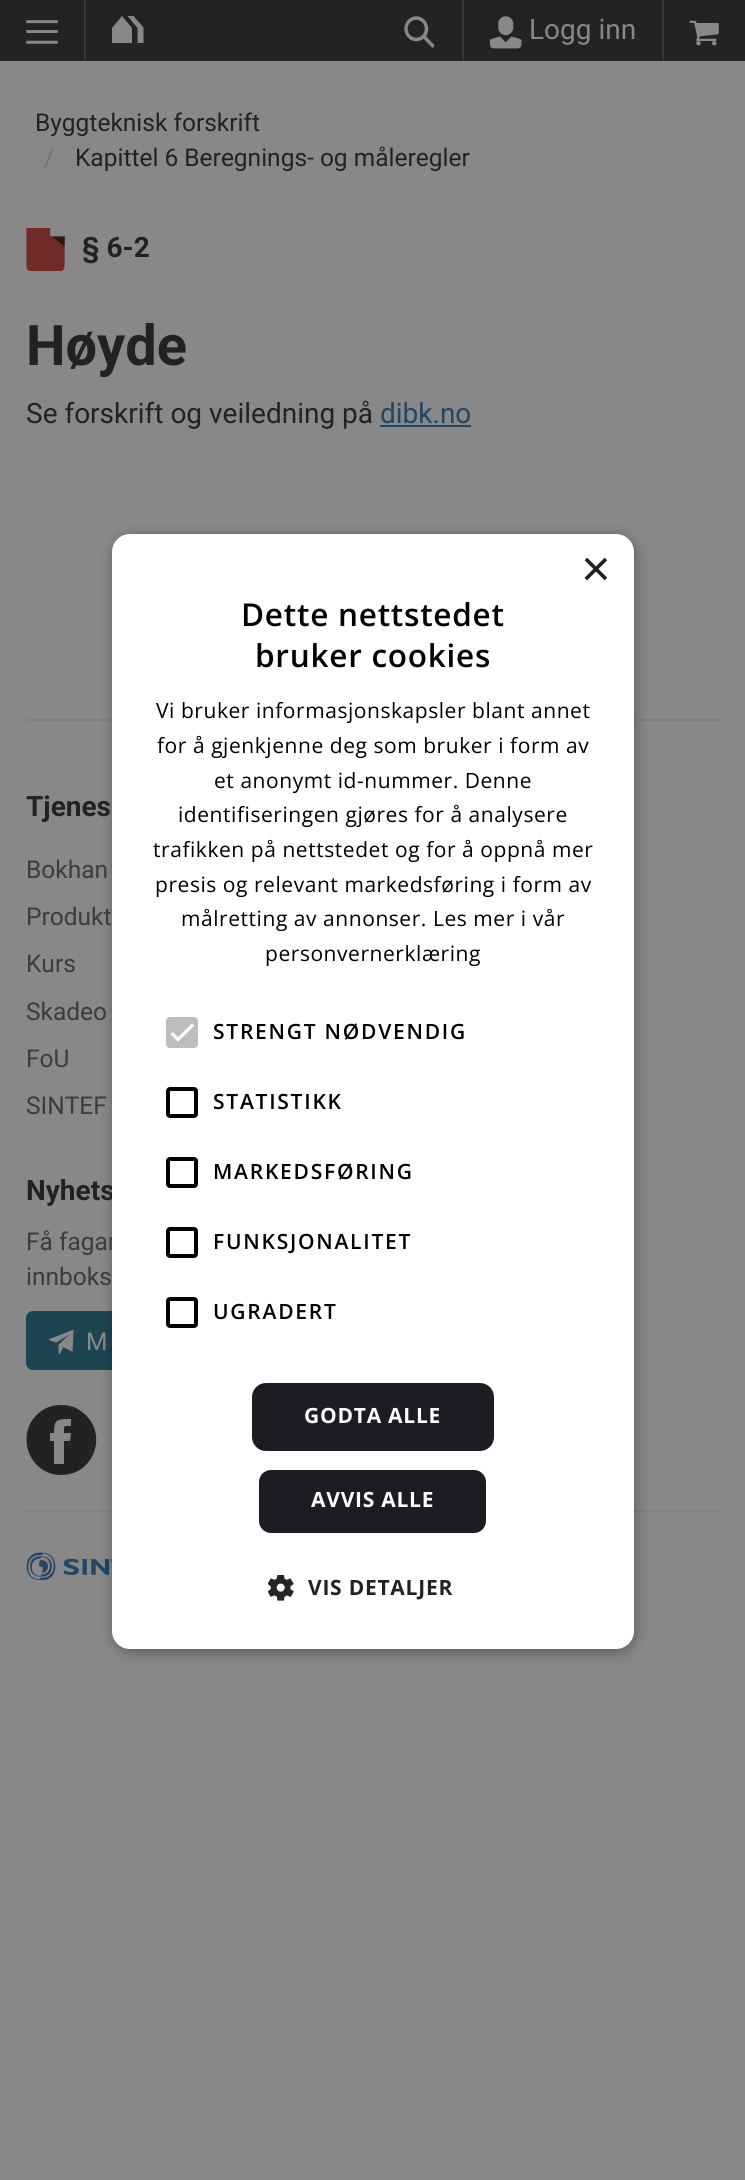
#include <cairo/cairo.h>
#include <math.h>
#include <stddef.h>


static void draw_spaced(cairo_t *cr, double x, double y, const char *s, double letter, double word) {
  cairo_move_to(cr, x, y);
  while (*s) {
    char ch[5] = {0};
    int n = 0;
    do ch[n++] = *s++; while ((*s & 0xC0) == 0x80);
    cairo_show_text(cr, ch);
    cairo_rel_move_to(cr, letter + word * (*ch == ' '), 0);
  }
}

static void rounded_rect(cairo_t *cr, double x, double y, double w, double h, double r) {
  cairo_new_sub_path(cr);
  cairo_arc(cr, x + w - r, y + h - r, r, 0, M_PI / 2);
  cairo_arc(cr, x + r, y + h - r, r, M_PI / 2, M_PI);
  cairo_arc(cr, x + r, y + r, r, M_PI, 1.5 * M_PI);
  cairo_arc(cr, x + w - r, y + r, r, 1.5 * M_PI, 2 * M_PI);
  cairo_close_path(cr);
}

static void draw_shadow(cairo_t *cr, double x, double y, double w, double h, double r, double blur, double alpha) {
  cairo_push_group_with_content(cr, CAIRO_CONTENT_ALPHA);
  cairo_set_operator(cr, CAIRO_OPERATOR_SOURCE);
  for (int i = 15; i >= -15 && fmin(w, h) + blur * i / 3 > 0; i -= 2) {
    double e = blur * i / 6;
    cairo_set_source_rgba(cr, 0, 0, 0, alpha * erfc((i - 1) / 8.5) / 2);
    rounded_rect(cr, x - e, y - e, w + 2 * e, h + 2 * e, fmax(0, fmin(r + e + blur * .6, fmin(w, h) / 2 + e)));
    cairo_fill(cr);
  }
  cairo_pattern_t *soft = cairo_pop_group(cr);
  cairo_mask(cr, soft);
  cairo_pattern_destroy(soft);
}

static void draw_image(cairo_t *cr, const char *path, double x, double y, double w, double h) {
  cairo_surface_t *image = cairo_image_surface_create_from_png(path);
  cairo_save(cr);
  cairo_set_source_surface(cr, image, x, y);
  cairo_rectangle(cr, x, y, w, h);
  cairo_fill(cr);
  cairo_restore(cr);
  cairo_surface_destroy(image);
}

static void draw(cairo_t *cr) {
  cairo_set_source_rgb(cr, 136 / 255.0, 136 / 255.0, 136 / 255.0);
  cairo_paint(cr);
  cairo_set_source_rgb(cr, 34 / 255.0, 35 / 255.0, 37 / 255.0);
  cairo_rectangle(cr, 0, 0, 745, 61);
  cairo_fill(cr);
  cairo_set_source_rgb(cr, 54 / 255.0, 55 / 255.0, 57 / 255.0);
  cairo_rectangle(cr, 662, 0, 2, 61);
  cairo_fill(cr);
  cairo_rectangle(cr, 462, 0, 2, 61);
  cairo_fill(cr);
  cairo_rectangle(cr, 84, 0, 2, 61);
  cairo_fill(cr);
  draw_image(cr, "images/1.png", 26, 20, 32, 24);
  cairo_set_source_rgb(cr, 136 / 255.0, 136 / 255.0, 136 / 255.0);
  cairo_new_path(cr);
  cairo_move_to(cr, 132, 28);
  cairo_line_to(cr, 132, 43);
  cairo_line_to(cr, 112, 43);
  cairo_line_to(cr, 112, 28);
  cairo_line_to(cr, 122, 16);
  cairo_close_path(cr);
  cairo_move_to(cr, 133.5, 16);
  cairo_line_to(cr, 143.5, 27.5);
  cairo_line_to(cr, 143.5, 43);
  cairo_line_to(cr, 137.5, 43);
  cairo_line_to(cr, 137.5, 28);
  cairo_line_to(cr, 127.5, 16);
  cairo_close_path(cr);
  cairo_fill(cr);
  draw_image(cr, "images/2.png", 404, 16, 31, 32);
  draw_image(cr, "images/3.png", 489, 16, 33, 33);
  draw_image(cr, "images/4.png", 689, 20, 30, 26);
  draw_image(cr, "images/5.png", 26, 228, 39, 43);
  cairo_set_source_rgb(cr, 34 / 255.0, 70 / 255.0, 100 / 255.0);
  cairo_rectangle(cr, 380, 425, 91, 2);
  cairo_fill(cr);
  cairo_set_source_rgb(cr, 128 / 255.0, 128 / 255.0, 128 / 255.0);
  cairo_rectangle(cr, 26, 719, 693, 2);
  cairo_fill(cr);
  cairo_set_source_rgb(cr, 29 / 255.0, 69 / 255.0, 81 / 255.0);
  rounded_rect(cr, 27, 1312, 340, 57, 6);
  cairo_fill_preserve(cr);
  cairo_stroke(cr);
  draw_image(cr, "images/6.png", 49, 1330, 25, 25);
  cairo_set_source_rgb(cr, 34 / 255.0, 34 / 255.0, 34 / 255.0);
  cairo_new_path(cr);
  cairo_move_to(cr, 61, 1405);
  cairo_curve_to(cr, 54, 1405, 46, 1407, 40, 1412);
  cairo_curve_to(cr, 14, 1432, 28, 1475, 61, 1475);
  cairo_curve_to(cr, 95, 1475, 109, 1432, 82, 1412);
  cairo_curve_to(cr, 76, 1407, 69, 1405, 61, 1405);
  cairo_close_path(cr);
  cairo_move_to(cr, 71, 1426);
  cairo_curve_to(cr, 63, 1426, 64, 1425, 64, 1433);
  cairo_line_to(cr, 71, 1433);
  cairo_line_to(cr, 70, 1441);
  cairo_line_to(cr, 64, 1441);
  cairo_line_to(cr, 64, 1464);
  cairo_line_to(cr, 54, 1464);
  cairo_line_to(cr, 54, 1441);
  cairo_line_to(cr, 50, 1441);
  cairo_line_to(cr, 50, 1433);
  cairo_line_to(cr, 54, 1433);
  cairo_curve_to(cr, 54, 1419, 57, 1419, 71, 1419);
  cairo_close_path(cr);
  cairo_fill(cr);
  cairo_set_source_rgb(cr, 128 / 255.0, 128 / 255.0, 128 / 255.0);
  cairo_rectangle(cr, 26, 1510, 693, 2);
  cairo_fill(cr);
  draw_image(cr, "images/7.png", 26, 1552, 86, 28);
  cairo_set_source_rgb(cr, 0, 0, 0);
  draw_shadow(cr, 114, 537, 521, 1115, 18, 7, 0.35);
  cairo_select_font_face(cr, "Roboto", CAIRO_FONT_SLANT_NORMAL, CAIRO_FONT_WEIGHT_NORMAL);
  cairo_set_font_size(cr, 28);
  cairo_set_source_rgb(cr, 136 / 255.0, 136 / 255.0, 136 / 255.0);
  cairo_move_to(cr, 529, 39);
  cairo_show_text(cr, "Logg inn");
  cairo_set_font_size(cr, 24.5);
  cairo_set_source_rgb(cr, 34 / 255.0, 34 / 255.0, 34 / 255.0);
  cairo_move_to(cr, 35, 131);
  cairo_show_text(cr, "Byggteknisk forskrift");
  cairo_set_source_rgb(cr, 111 / 255.0, 111 / 255.0, 111 / 255.0);
  cairo_move_to(cr, 44, 166);
  cairo_show_text(cr, "/");
  cairo_set_source_rgb(cr, 34 / 255.0, 34 / 255.0, 34 / 255.0);
  cairo_move_to(cr, 75, 166);
  cairo_show_text(cr, "Kapittel 6 Beregnings- og måleregler");
  cairo_select_font_face(cr, "Roboto", CAIRO_FONT_SLANT_NORMAL, CAIRO_FONT_WEIGHT_BOLD);
  cairo_set_font_size(cr, 28);
  cairo_move_to(cr, 82, 257);
  cairo_show_text(cr, "§ 6-2");
  cairo_set_font_size(cr, 56);
  cairo_move_to(cr, 26, 365);
  cairo_show_text(cr, "Høyde");
  cairo_select_font_face(cr, "Roboto", CAIRO_FONT_SLANT_NORMAL, CAIRO_FONT_WEIGHT_NORMAL);
  cairo_set_font_size(cr, 28);
  cairo_move_to(cr, 26, 423);
  cairo_show_text(cr, "Se forskrift og veiledning på");
  cairo_set_source_rgb(cr, 34 / 255.0, 70 / 255.0, 100 / 255.0);
  cairo_move_to(cr, 380, 423);
  cairo_show_text(cr, "dibk.no");
  cairo_select_font_face(cr, "Roboto", CAIRO_FONT_SLANT_NORMAL, CAIRO_FONT_WEIGHT_BOLD);
  cairo_set_source_rgb(cr, 34 / 255.0, 34 / 255.0, 34 / 255.0);
  cairo_move_to(cr, 26, 816);
  cairo_show_text(cr, "Tjenes");
  cairo_select_font_face(cr, "Roboto", CAIRO_FONT_SLANT_NORMAL, CAIRO_FONT_WEIGHT_NORMAL);
  cairo_set_font_size(cr, 24.5);
  cairo_set_source_rgb(cr, 60 / 255.0, 60 / 255.0, 60 / 255.0);
  cairo_move_to(cr, 26, 878);
  cairo_show_text(cr, "Bokhan");
  cairo_move_to(cr, 26, 925);
  cairo_show_text(cr, "Produkt");
  cairo_move_to(cr, 26, 972);
  cairo_show_text(cr, "Kurs");
  cairo_move_to(cr, 26, 1020);
  cairo_show_text(cr, "Skadeo");
  cairo_move_to(cr, 26, 1067);
  cairo_show_text(cr, "FoU");
  cairo_move_to(cr, 26, 1114);
  cairo_show_text(cr, "SINTEF");
  cairo_select_font_face(cr, "Roboto", CAIRO_FONT_SLANT_NORMAL, CAIRO_FONT_WEIGHT_BOLD);
  cairo_set_font_size(cr, 28);
  cairo_set_source_rgb(cr, 34 / 255.0, 34 / 255.0, 34 / 255.0);
  cairo_move_to(cr, 26, 1200);
  cairo_show_text(cr, "Nyhets");
  cairo_select_font_face(cr, "Roboto", CAIRO_FONT_SLANT_NORMAL, CAIRO_FONT_WEIGHT_NORMAL);
  cairo_set_font_size(cr, 24.5);
  cairo_set_source_rgb(cr, 60 / 255.0, 60 / 255.0, 60 / 255.0);
  cairo_move_to(cr, 26, 1250);
  cairo_show_text(cr, "Få fagar");
  cairo_move_to(cr, 26, 1285);
  cairo_show_text(cr, "innboks");
  cairo_set_source_rgb(cr, 136 / 255.0, 136 / 255.0, 136 / 255.0);
  cairo_move_to(cr, 86, 1350);
  cairo_show_text(cr, "M");
  cairo_set_source_rgb(cr, 1, 1, 1);
  rounded_rect(cr, 112, 534, 522, 1115, 18);
  cairo_fill(cr);
  cairo_select_font_face(cr, "Liberation Sans", CAIRO_FONT_SLANT_NORMAL, CAIRO_FONT_WEIGHT_NORMAL);
  cairo_set_font_size(cr, 51);
  cairo_set_source_rgb(cr, 34 / 255.0, 34 / 255.0, 34 / 255.0);
  cairo_move_to(cr, 581, 586);
  cairo_show_text(cr, "×");
  cairo_select_font_face(cr, "Open Sans SemiBold", CAIRO_FONT_SLANT_NORMAL, CAIRO_FONT_WEIGHT_NORMAL);
  cairo_set_font_size(cr, 31.5);
  cairo_set_source_rgb(cr, 0, 0, 0);
  draw_spaced(cr, 241, 626, "Dette nettstedet", 0.75, 0);
  draw_spaced(cr, 255, 667, "bruker cookies", 0.75, 0);
  cairo_select_font_face(cr, "Open Sans", CAIRO_FONT_SLANT_NORMAL, CAIRO_FONT_WEIGHT_NORMAL);
  cairo_set_font_size(cr, 21);
  draw_spaced(cr, 156, 718, "Vi bruker informasjonskapsler blant annet", 0.55, 0);
  draw_spaced(cr, 157, 753, "for å gjenkjenne deg som bruker i form av", 0.55, 0);
  draw_spaced(cr, 214, 788, "et anonymt id-nummer. Denne", 0.55, 0);
  draw_spaced(cr, 178, 822, "identifiseringen gjøres for å analysere", 0.55, 0);
  draw_spaced(cr, 153, 857, "trafikken på nettstedet og for å oppnå mer", 0.55, 0);
  draw_spaced(cr, 155, 892, "presis og relevant markedsføring i form av", 0.55, 0);
  draw_spaced(cr, 181, 926, "målretting av annonser. Les mer i vår", 0.55, 0);
  draw_spaced(cr, 265, 961, "personvernerklæring", 0.55, 0);
  cairo_set_source_rgb(cr, 189 / 255.0, 189 / 255.0, 189 / 255.0);
  rounded_rect(cr, 166, 1017, 32, 31, 4);
  cairo_fill(cr);
  cairo_new_path(cr);
  cairo_move_to(cr, 171.5, 1033);
  cairo_line_to(cr, 178, 1039.5);
  cairo_line_to(cr, 193, 1024.5);
  cairo_set_source_rgb(cr, 1, 1, 1);
  cairo_set_line_width(cr, 3.2);
  cairo_stroke(cr);
  cairo_select_font_face(cr, "Open Sans SemiBold", CAIRO_FONT_SLANT_NORMAL, CAIRO_FONT_WEIGHT_NORMAL);
  cairo_set_source_rgb(cr, 0, 0, 0);
  draw_spaced(cr, 213, 1039, "STRENGT NØDVENDIG", 1.75, 0);
  rounded_rect(cr, 168, 1089, 28, 27, 2);
  cairo_set_line_width(cr, 4);
  cairo_stroke(cr);
  draw_spaced(cr, 213, 1109, "STATISTIKK", 1.75, 0);
  rounded_rect(cr, 168, 1159, 28, 27, 2);
  cairo_stroke(cr);
  draw_spaced(cr, 213, 1179, "MARKEDSFØRING", 1.75, 0);
  rounded_rect(cr, 168, 1229, 28, 27, 2);
  cairo_stroke(cr);
  draw_spaced(cr, 213, 1249, "FUNKSJONALITET", 1.75, 0);
  rounded_rect(cr, 168, 1299, 28, 27, 2);
  cairo_stroke(cr);
  draw_spaced(cr, 213, 1319, "UGRADERT", 1.75, 0);
  cairo_set_source_rgb(cr, 27 / 255.0, 29 / 255.0, 34 / 255.0);
  rounded_rect(cr, 252, 1383, 242, 68, 14);
  cairo_fill(cr);
  cairo_select_font_face(cr, "Open Sans", CAIRO_FONT_SLANT_NORMAL, CAIRO_FONT_WEIGHT_BOLD);
  cairo_set_source_rgb(cr, 1, 1, 1);
  draw_spaced(cr, 304, 1423, "GODTA ALLE", 0.75, 0);
  cairo_set_source_rgb(cr, 27 / 255.0, 29 / 255.0, 34 / 255.0);
  rounded_rect(cr, 258, 1469, 229, 65, 13);
  cairo_fill_preserve(cr);
  cairo_set_source_rgb(cr, 1, 1, 1);
  cairo_set_line_width(cr, 2);
  cairo_stroke(cr);
  draw_spaced(cr, 311, 1507, "AVVIS ALLE", 0.75, 0);
  draw_image(cr, "images/8.png", 268, 1575, 26, 26);
  cairo_set_source_rgb(cr, 34 / 255.0, 34 / 255.0, 34 / 255.0);
  draw_spaced(cr, 308, 1595, "VIS DETALJER", 0.75, 0);
}

int main(void) {
  cairo_surface_t *surface = cairo_image_surface_create(CAIRO_FORMAT_RGB24, 745, 2180);
  cairo_t *cr = cairo_create(surface);
  cairo_font_options_t *options = cairo_font_options_create();
  cairo_font_options_set_hint_metrics(options, CAIRO_HINT_METRICS_OFF);
  cairo_font_options_set_hint_style(options, CAIRO_HINT_STYLE_NONE);
  cairo_set_font_options(cr, options);
  cairo_set_miter_limit(cr, 4);
  draw(cr);
  cairo_surface_write_to_png(surface, "out.png");
  cairo_font_options_destroy(options);
  cairo_destroy(cr);
  cairo_surface_destroy(surface);
  return 0;
}
